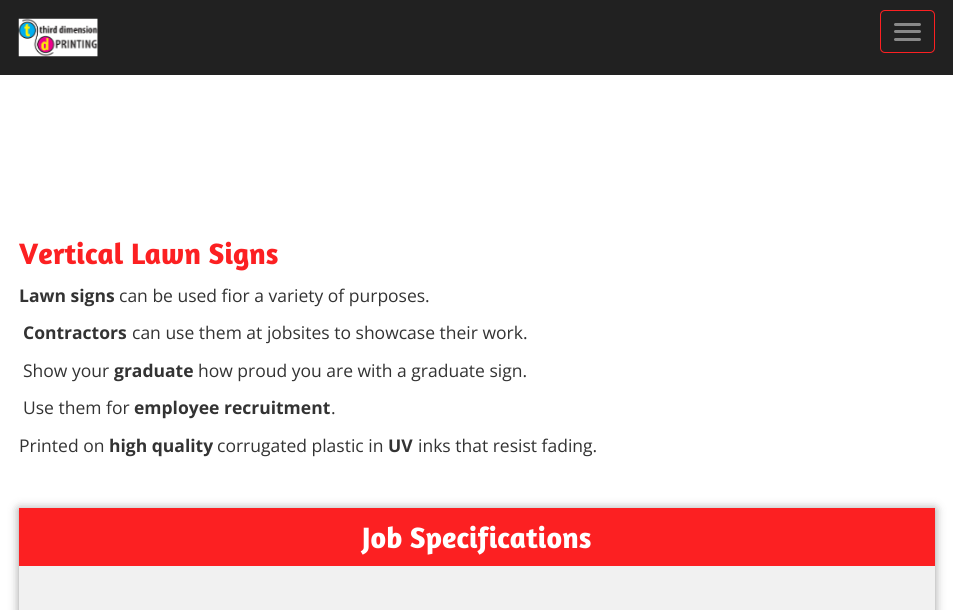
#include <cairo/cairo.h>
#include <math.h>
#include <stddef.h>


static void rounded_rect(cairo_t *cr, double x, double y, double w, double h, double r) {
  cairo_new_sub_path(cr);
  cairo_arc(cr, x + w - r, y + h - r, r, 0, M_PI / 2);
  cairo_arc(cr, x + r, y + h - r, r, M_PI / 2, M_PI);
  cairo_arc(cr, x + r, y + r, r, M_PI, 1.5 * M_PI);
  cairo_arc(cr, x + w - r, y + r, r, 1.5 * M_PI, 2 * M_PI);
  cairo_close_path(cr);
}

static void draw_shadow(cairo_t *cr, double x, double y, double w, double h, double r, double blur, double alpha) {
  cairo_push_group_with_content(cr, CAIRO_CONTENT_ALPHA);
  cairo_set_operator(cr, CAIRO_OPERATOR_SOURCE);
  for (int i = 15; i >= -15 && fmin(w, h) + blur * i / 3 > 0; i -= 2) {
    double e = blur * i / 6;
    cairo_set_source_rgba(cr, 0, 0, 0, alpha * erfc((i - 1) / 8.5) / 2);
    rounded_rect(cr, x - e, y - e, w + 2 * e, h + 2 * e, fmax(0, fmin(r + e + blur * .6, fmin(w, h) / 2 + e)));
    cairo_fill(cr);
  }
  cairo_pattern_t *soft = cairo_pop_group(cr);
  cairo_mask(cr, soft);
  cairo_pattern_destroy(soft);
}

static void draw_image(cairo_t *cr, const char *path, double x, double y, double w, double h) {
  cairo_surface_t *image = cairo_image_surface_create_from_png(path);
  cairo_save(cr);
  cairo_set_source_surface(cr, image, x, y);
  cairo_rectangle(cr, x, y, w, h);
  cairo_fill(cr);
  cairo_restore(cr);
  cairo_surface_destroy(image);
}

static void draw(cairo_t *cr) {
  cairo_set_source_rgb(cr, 1, 1, 1);
  cairo_paint(cr);
  cairo_set_source_rgb(cr, 33 / 255.0, 33 / 255.0, 33 / 255.0);
  cairo_rectangle(cr, 0, 0, 953, 75);
  cairo_fill(cr);
  draw_image(cr, "images/1.png", 18, 18, 80, 39);
  rounded_rect(cr, 880.5, 10.5, 54, 42, 4.5);
  cairo_set_source_rgb(cr, 252 / 255.0, 32 / 255.0, 34 / 255.0);
  cairo_set_line_width(cr, 1);
  cairo_stroke(cr);
  cairo_set_source_rgb(cr, 136 / 255.0, 136 / 255.0, 136 / 255.0);
  rounded_rect(cr, 894, 23, 27, 3, 1.5);
  cairo_fill(cr);
  rounded_rect(cr, 894, 30, 27, 3, 1.5);
  cairo_fill(cr);
  rounded_rect(cr, 894, 38, 27, 3, 1.5);
  cairo_fill(cr);
  cairo_set_source_rgb(cr, 0, 0, 0);
  draw_shadow(cr, 19, 509, 916, 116, 0, 5, 0.4);
  cairo_set_source_rgb(cr, 252 / 255.0, 32 / 255.0, 34 / 255.0);
  cairo_rectangle(cr, 19, 508, 916, 58);
  cairo_fill(cr);
  cairo_set_source_rgb(cr, 241 / 255.0, 241 / 255.0, 241 / 255.0);
  cairo_rectangle(cr, 19, 566, 916, 44);
  cairo_fill(cr);
  cairo_select_font_face(cr, "Amaranth", CAIRO_FONT_SLANT_NORMAL, CAIRO_FONT_WEIGHT_BOLD);
  cairo_set_font_size(cr, 30);
  cairo_set_source_rgb(cr, 252 / 255.0, 32 / 255.0, 34 / 255.0);
  cairo_move_to(cr, 19, 264);
  cairo_show_text(cr, "Vertical Lawn Signs");
  cairo_select_font_face(cr, "Open Sans", CAIRO_FONT_SLANT_NORMAL, CAIRO_FONT_WEIGHT_BOLD);
  cairo_set_font_size(cr, 17.5);
  cairo_set_source_rgb(cr, 51 / 255.0, 51 / 255.0, 51 / 255.0);
  cairo_move_to(cr, 19, 302);
  cairo_show_text(cr, "Lawn signs");
  cairo_select_font_face(cr, "Open Sans", CAIRO_FONT_SLANT_NORMAL, CAIRO_FONT_WEIGHT_NORMAL);
  cairo_move_to(cr, 119, 302);
  cairo_show_text(cr, "can be used fior a variety of purposes.");
  cairo_select_font_face(cr, "Open Sans", CAIRO_FONT_SLANT_NORMAL, CAIRO_FONT_WEIGHT_BOLD);
  cairo_move_to(cr, 23, 339);
  cairo_show_text(cr, "Contractors");
  cairo_select_font_face(cr, "Open Sans", CAIRO_FONT_SLANT_NORMAL, CAIRO_FONT_WEIGHT_NORMAL);
  cairo_move_to(cr, 132, 339);
  cairo_show_text(cr, "can use them at jobsites to showcase their work.");
  cairo_move_to(cr, 23, 377);
  cairo_show_text(cr, "Show your");
  cairo_select_font_face(cr, "Open Sans", CAIRO_FONT_SLANT_NORMAL, CAIRO_FONT_WEIGHT_BOLD);
  cairo_move_to(cr, 114, 377);
  cairo_show_text(cr, "graduate");
  cairo_select_font_face(cr, "Open Sans", CAIRO_FONT_SLANT_NORMAL, CAIRO_FONT_WEIGHT_NORMAL);
  cairo_move_to(cr, 198, 377);
  cairo_show_text(cr, "how proud you are with a graduate sign.");
  cairo_move_to(cr, 23, 414);
  cairo_show_text(cr, "Use them for");
  cairo_select_font_face(cr, "Open Sans", CAIRO_FONT_SLANT_NORMAL, CAIRO_FONT_WEIGHT_BOLD);
  cairo_move_to(cr, 134, 414);
  cairo_show_text(cr, "employee recruitment");
  cairo_select_font_face(cr, "Open Sans", CAIRO_FONT_SLANT_NORMAL, CAIRO_FONT_WEIGHT_NORMAL);
  cairo_move_to(cr, 331, 414);
  cairo_show_text(cr, ".");
  cairo_move_to(cr, 19, 452);
  cairo_show_text(cr, "Printed on");
  cairo_select_font_face(cr, "Open Sans", CAIRO_FONT_SLANT_NORMAL, CAIRO_FONT_WEIGHT_BOLD);
  cairo_move_to(cr, 109, 452);
  cairo_show_text(cr, "high quality");
  cairo_select_font_face(cr, "Open Sans", CAIRO_FONT_SLANT_NORMAL, CAIRO_FONT_WEIGHT_NORMAL);
  cairo_move_to(cr, 217, 452);
  cairo_show_text(cr, "corrugated plastic in");
  cairo_select_font_face(cr, "Open Sans", CAIRO_FONT_SLANT_NORMAL, CAIRO_FONT_WEIGHT_BOLD);
  cairo_move_to(cr, 388, 452);
  cairo_show_text(cr, "UV");
  cairo_select_font_face(cr, "Open Sans", CAIRO_FONT_SLANT_NORMAL, CAIRO_FONT_WEIGHT_NORMAL);
  cairo_move_to(cr, 418, 452);
  cairo_show_text(cr, "inks that resist fading.");
  cairo_select_font_face(cr, "Amaranth", CAIRO_FONT_SLANT_NORMAL, CAIRO_FONT_WEIGHT_BOLD);
  cairo_set_font_size(cr, 30);
  cairo_set_source_rgb(cr, 1, 1, 1);
  cairo_move_to(cr, 362, 548);
  cairo_show_text(cr, "Job Specifications");
}

int main(void) {
  cairo_surface_t *surface = cairo_image_surface_create(CAIRO_FORMAT_RGB24, 953, 610);
  cairo_t *cr = cairo_create(surface);
  cairo_font_options_t *options = cairo_font_options_create();
  cairo_font_options_set_hint_metrics(options, CAIRO_HINT_METRICS_OFF);
  cairo_font_options_set_hint_style(options, CAIRO_HINT_STYLE_NONE);
  cairo_set_font_options(cr, options);
  cairo_set_miter_limit(cr, 4);
  draw(cr);
  cairo_surface_write_to_png(surface, "out.png");
  cairo_font_options_destroy(options);
  cairo_destroy(cr);
  cairo_surface_destroy(surface);
  return 0;
}
